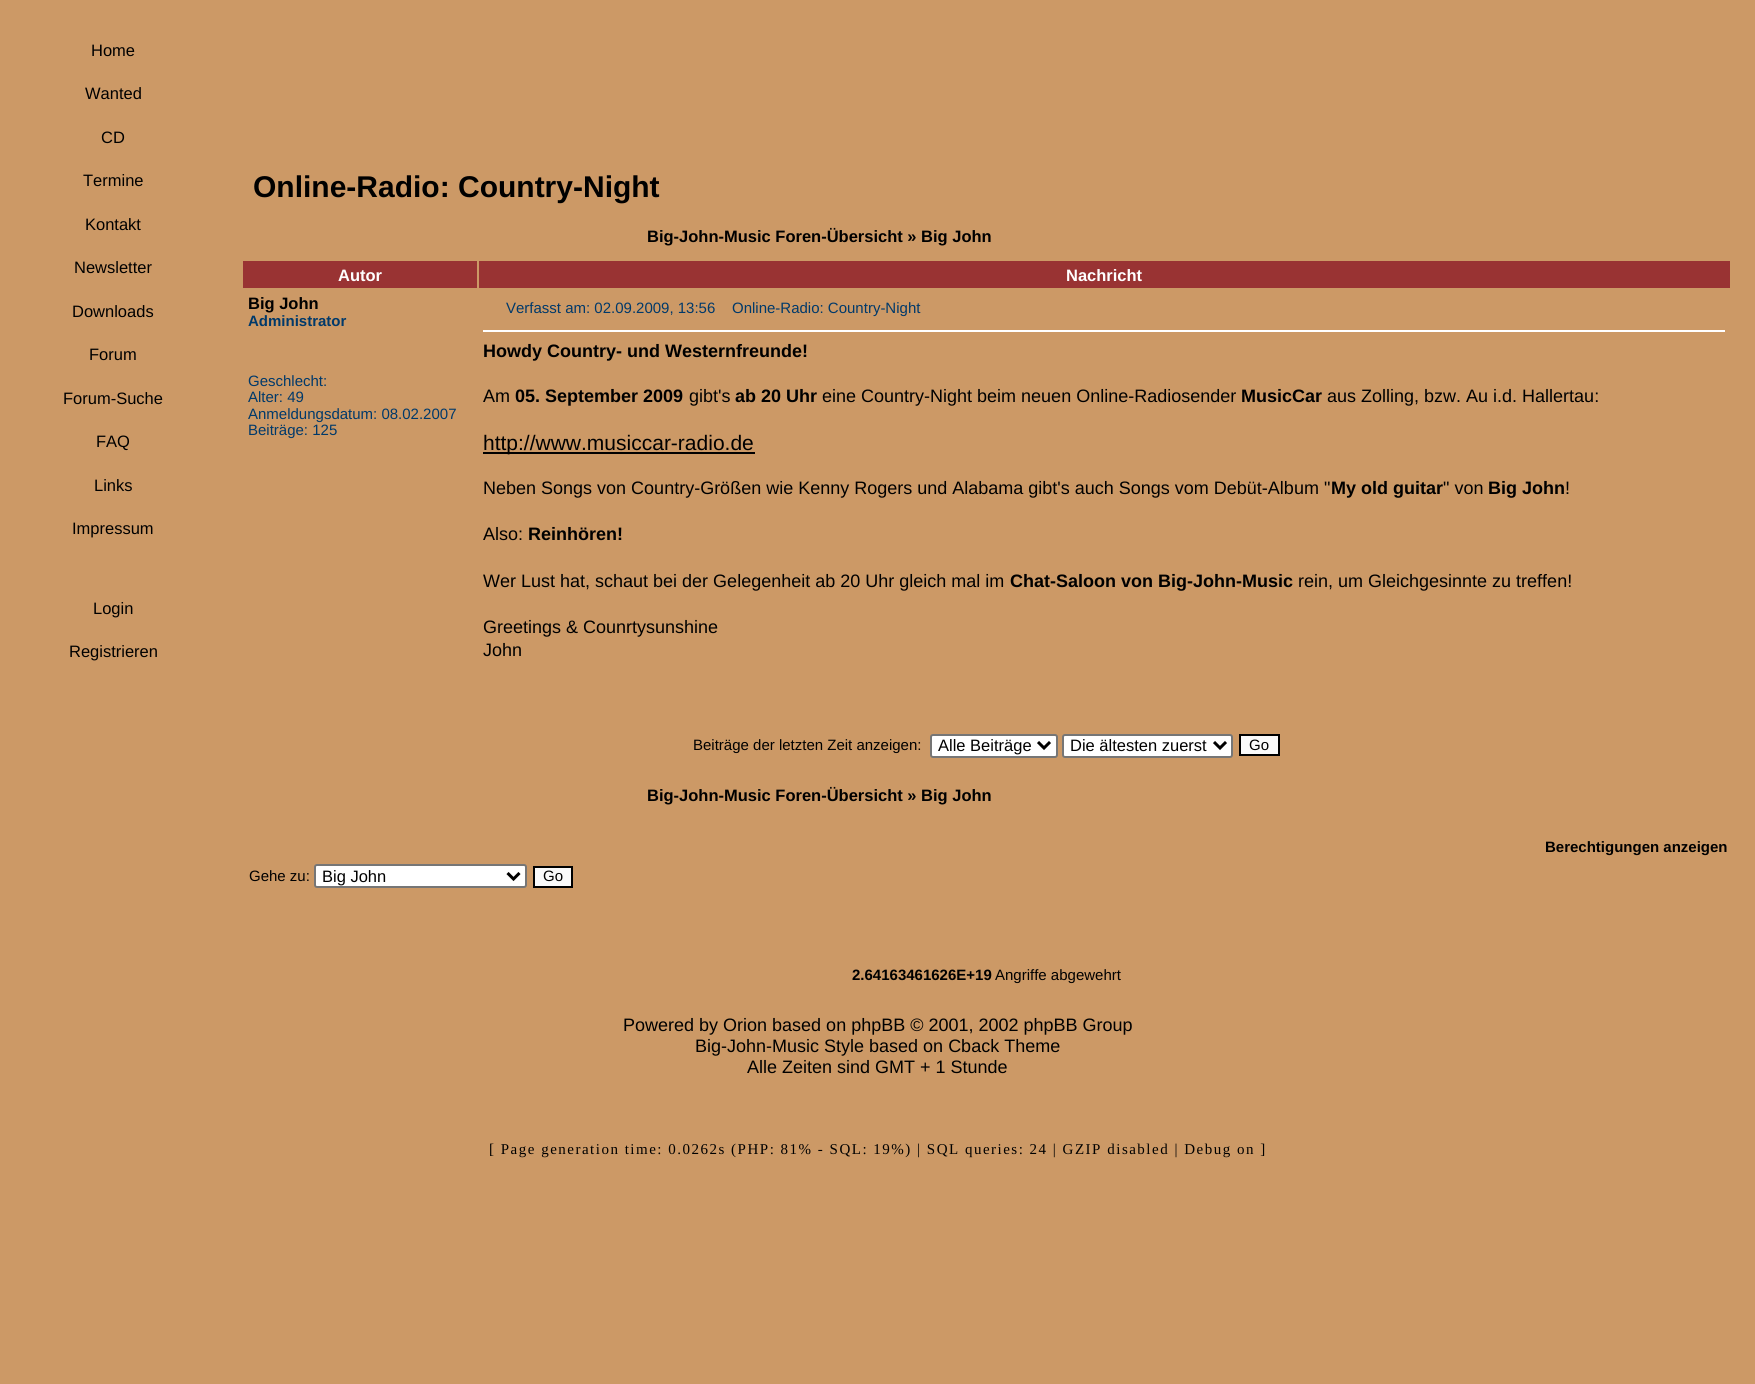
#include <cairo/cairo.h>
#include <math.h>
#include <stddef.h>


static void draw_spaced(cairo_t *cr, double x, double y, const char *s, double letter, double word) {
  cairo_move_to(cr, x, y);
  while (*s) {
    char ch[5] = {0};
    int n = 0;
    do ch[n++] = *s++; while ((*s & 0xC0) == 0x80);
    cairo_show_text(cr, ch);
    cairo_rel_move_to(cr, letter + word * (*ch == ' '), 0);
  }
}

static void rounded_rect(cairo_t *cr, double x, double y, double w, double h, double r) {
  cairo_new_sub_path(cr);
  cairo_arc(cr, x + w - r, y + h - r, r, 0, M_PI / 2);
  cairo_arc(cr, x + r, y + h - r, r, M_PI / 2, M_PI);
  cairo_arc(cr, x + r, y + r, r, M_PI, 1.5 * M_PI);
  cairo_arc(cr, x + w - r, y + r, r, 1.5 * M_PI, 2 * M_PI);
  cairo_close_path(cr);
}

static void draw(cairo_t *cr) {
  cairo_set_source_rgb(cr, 204 / 255.0, 153 / 255.0, 102 / 255.0);
  cairo_paint(cr);
  cairo_set_source_rgb(cr, 153 / 255.0, 51 / 255.0, 51 / 255.0);
  cairo_rectangle(cr, 243, 261, 234, 27);
  cairo_fill(cr);
  cairo_rectangle(cr, 479, 261, 1251, 27);
  cairo_fill(cr);
  cairo_set_source_rgb(cr, 1, 1, 1);
  cairo_rectangle(cr, 483, 330, 1242, 2);
  cairo_fill(cr);
  cairo_set_source_rgb(cr, 0, 0, 0);
  cairo_rectangle(cr, 483, 452, 272, 2);
  cairo_fill(cr);
  cairo_set_source_rgb(cr, 1, 1, 1);
  rounded_rect(cr, 931, 735, 126, 22, 2);
  cairo_fill_preserve(cr);
  cairo_set_source_rgb(cr, 118 / 255.0, 118 / 255.0, 118 / 255.0);
  cairo_stroke(cr);
  cairo_new_path(cr);
  cairo_move_to(cr, 1038, 742);
  cairo_line_to(cr, 1044, 748);
  cairo_line_to(cr, 1050, 742);
  cairo_set_source_rgb(cr, 0, 0, 0);
  cairo_set_line_width(cr, 3);
  cairo_stroke(cr);
  cairo_set_source_rgb(cr, 1, 1, 1);
  rounded_rect(cr, 1063, 735, 169, 22, 2);
  cairo_fill_preserve(cr);
  cairo_set_source_rgb(cr, 118 / 255.0, 118 / 255.0, 118 / 255.0);
  cairo_set_line_width(cr, 2);
  cairo_stroke(cr);
  cairo_new_path(cr);
  cairo_move_to(cr, 1214, 742);
  cairo_line_to(cr, 1220, 748);
  cairo_line_to(cr, 1226, 742);
  cairo_set_source_rgb(cr, 0, 0, 0);
  cairo_set_line_width(cr, 3);
  cairo_stroke(cr);
  cairo_set_source_rgb(cr, 250 / 255.0, 250 / 255.0, 250 / 255.0);
  cairo_rectangle(cr, 1240, 735, 39, 20);
  cairo_fill_preserve(cr);
  cairo_set_source_rgb(cr, 0, 0, 0);
  cairo_set_line_width(cr, 2);
  cairo_stroke(cr);
  cairo_set_source_rgb(cr, 1, 1, 1);
  rounded_rect(cr, 315, 865, 211, 22, 2);
  cairo_fill_preserve(cr);
  cairo_set_source_rgb(cr, 118 / 255.0, 118 / 255.0, 118 / 255.0);
  cairo_stroke(cr);
  cairo_new_path(cr);
  cairo_move_to(cr, 507.5, 873);
  cairo_line_to(cr, 513.5, 879);
  cairo_line_to(cr, 519.5, 873);
  cairo_set_source_rgb(cr, 0, 0, 0);
  cairo_set_line_width(cr, 3);
  cairo_stroke(cr);
  cairo_set_source_rgb(cr, 250 / 255.0, 250 / 255.0, 250 / 255.0);
  cairo_rectangle(cr, 534, 867, 38, 20);
  cairo_fill_preserve(cr);
  cairo_set_source_rgb(cr, 0, 0, 0);
  cairo_set_line_width(cr, 2);
  cairo_stroke(cr);
  cairo_select_font_face(cr, "Liberation Sans", CAIRO_FONT_SLANT_NORMAL, CAIRO_FONT_WEIGHT_NORMAL);
  cairo_set_font_size(cr, 16.5);
  cairo_move_to(cr, 91, 56);
  cairo_show_text(cr, "Home");
  cairo_move_to(cr, 85, 99);
  cairo_show_text(cr, "Wanted");
  cairo_move_to(cr, 101, 143);
  cairo_show_text(cr, "CD");
  cairo_move_to(cr, 83, 186);
  cairo_show_text(cr, "Termine");
  cairo_move_to(cr, 85, 230);
  cairo_show_text(cr, "Kontakt");
  cairo_move_to(cr, 74, 273);
  cairo_show_text(cr, "Newsletter");
  cairo_move_to(cr, 72, 317);
  cairo_show_text(cr, "Downloads");
  cairo_move_to(cr, 89, 360);
  cairo_show_text(cr, "Forum");
  cairo_move_to(cr, 63, 404);
  cairo_show_text(cr, "Forum-Suche");
  cairo_move_to(cr, 96, 447);
  cairo_show_text(cr, "FAQ");
  cairo_move_to(cr, 94, 491);
  cairo_show_text(cr, "Links");
  cairo_move_to(cr, 72, 534);
  cairo_show_text(cr, "Impressum");
  cairo_move_to(cr, 93, 614);
  cairo_show_text(cr, "Login");
  cairo_move_to(cr, 69, 657);
  cairo_show_text(cr, "Registrieren");
  cairo_select_font_face(cr, "Liberation Sans", CAIRO_FONT_SLANT_NORMAL, CAIRO_FONT_WEIGHT_BOLD);
  cairo_set_font_size(cr, 30);
  cairo_move_to(cr, 253, 197);
  cairo_show_text(cr, "Online-Radio: Country-Night");
  cairo_set_font_size(cr, 16.5);
  cairo_move_to(cr, 647, 242);
  cairo_show_text(cr, "Big-John-Music Foren-Übersicht » Big John");
  cairo_set_source_rgb(cr, 1, 1, 1);
  cairo_move_to(cr, 338, 281);
  cairo_show_text(cr, "Autor");
  cairo_move_to(cr, 1066, 281);
  cairo_show_text(cr, "Nachricht");
  cairo_set_source_rgb(cr, 0, 0, 0);
  cairo_move_to(cr, 248, 309);
  cairo_show_text(cr, "Big John");
  cairo_set_font_size(cr, 15);
  cairo_set_source_rgb(cr, 0, 57 / 255.0, 106 / 255.0);
  cairo_move_to(cr, 248, 326);
  cairo_show_text(cr, "Administrator");
  cairo_select_font_face(cr, "Liberation Sans", CAIRO_FONT_SLANT_NORMAL, CAIRO_FONT_WEIGHT_NORMAL);
  cairo_move_to(cr, 248, 386);
  cairo_show_text(cr, "Geschlecht:");
  cairo_move_to(cr, 248, 402);
  cairo_show_text(cr, "Alter: 49");
  cairo_move_to(cr, 248, 419);
  cairo_show_text(cr, "Anmeldungsdatum: 08.02.2007");
  cairo_move_to(cr, 248, 435);
  cairo_show_text(cr, "Beiträge: 125");
  cairo_move_to(cr, 506, 313);
  cairo_show_text(cr, "Verfasst am: 02.09.2009, 13:56    Online-Radio: Country-Night");
  cairo_select_font_face(cr, "Liberation Sans", CAIRO_FONT_SLANT_NORMAL, CAIRO_FONT_WEIGHT_BOLD);
  cairo_set_font_size(cr, 18);
  cairo_set_source_rgb(cr, 0, 0, 0);
  cairo_move_to(cr, 483, 357);
  cairo_show_text(cr, "Howdy Country- und Westernfreunde!");
  cairo_select_font_face(cr, "Liberation Sans", CAIRO_FONT_SLANT_NORMAL, CAIRO_FONT_WEIGHT_NORMAL);
  cairo_move_to(cr, 483, 402);
  cairo_show_text(cr, "Am");
  cairo_select_font_face(cr, "Liberation Sans", CAIRO_FONT_SLANT_NORMAL, CAIRO_FONT_WEIGHT_BOLD);
  cairo_move_to(cr, 515, 402);
  cairo_show_text(cr, "05. September 2009");
  cairo_select_font_face(cr, "Liberation Sans", CAIRO_FONT_SLANT_NORMAL, CAIRO_FONT_WEIGHT_NORMAL);
  cairo_move_to(cr, 689, 402);
  cairo_show_text(cr, "gibt's");
  cairo_select_font_face(cr, "Liberation Sans", CAIRO_FONT_SLANT_NORMAL, CAIRO_FONT_WEIGHT_BOLD);
  cairo_move_to(cr, 735, 402);
  cairo_show_text(cr, "ab 20 Uhr");
  cairo_select_font_face(cr, "Liberation Sans", CAIRO_FONT_SLANT_NORMAL, CAIRO_FONT_WEIGHT_NORMAL);
  cairo_move_to(cr, 822, 402);
  cairo_show_text(cr, "eine Country-Night beim neuen Online-Radiosender");
  cairo_select_font_face(cr, "Liberation Sans", CAIRO_FONT_SLANT_NORMAL, CAIRO_FONT_WEIGHT_BOLD);
  cairo_move_to(cr, 1241, 402);
  cairo_show_text(cr, "MusicCar");
  cairo_select_font_face(cr, "Liberation Sans", CAIRO_FONT_SLANT_NORMAL, CAIRO_FONT_WEIGHT_NORMAL);
  cairo_move_to(cr, 1327, 402);
  cairo_show_text(cr, "aus Zolling, bzw. Au i.d. Hallertau:");
  cairo_set_font_size(cr, 21);
  cairo_move_to(cr, 483, 450);
  cairo_show_text(cr, "http://www.musiccar-radio.de");
  cairo_set_font_size(cr, 18);
  cairo_move_to(cr, 483, 494);
  cairo_show_text(cr, "Neben Songs von Country-Größen wie Kenny Rogers und Alabama gibt's auch Songs vom Debüt-Album \"");
  cairo_select_font_face(cr, "Liberation Sans", CAIRO_FONT_SLANT_NORMAL, CAIRO_FONT_WEIGHT_BOLD);
  cairo_move_to(cr, 1331, 494);
  cairo_show_text(cr, "My old guitar");
  cairo_select_font_face(cr, "Liberation Sans", CAIRO_FONT_SLANT_NORMAL, CAIRO_FONT_WEIGHT_NORMAL);
  cairo_move_to(cr, 1443, 494);
  cairo_show_text(cr, "\" von");
  cairo_select_font_face(cr, "Liberation Sans", CAIRO_FONT_SLANT_NORMAL, CAIRO_FONT_WEIGHT_BOLD);
  cairo_move_to(cr, 1488, 494);
  cairo_show_text(cr, "Big John");
  cairo_select_font_face(cr, "Liberation Sans", CAIRO_FONT_SLANT_NORMAL, CAIRO_FONT_WEIGHT_NORMAL);
  cairo_move_to(cr, 1565, 494);
  cairo_show_text(cr, "!");
  cairo_move_to(cr, 483, 540);
  cairo_show_text(cr, "Also:");
  cairo_select_font_face(cr, "Liberation Sans", CAIRO_FONT_SLANT_NORMAL, CAIRO_FONT_WEIGHT_BOLD);
  cairo_move_to(cr, 528, 540);
  cairo_show_text(cr, "Reinhören!");
  cairo_select_font_face(cr, "Liberation Sans", CAIRO_FONT_SLANT_NORMAL, CAIRO_FONT_WEIGHT_NORMAL);
  cairo_move_to(cr, 483, 587);
  cairo_show_text(cr, "Wer Lust hat, schaut bei der Gelegenheit ab 20 Uhr gleich mal im");
  cairo_select_font_face(cr, "Liberation Sans", CAIRO_FONT_SLANT_NORMAL, CAIRO_FONT_WEIGHT_BOLD);
  cairo_move_to(cr, 1010, 587);
  cairo_show_text(cr, "Chat-Saloon von Big-John-Music");
  cairo_select_font_face(cr, "Liberation Sans", CAIRO_FONT_SLANT_NORMAL, CAIRO_FONT_WEIGHT_NORMAL);
  cairo_move_to(cr, 1298, 587);
  cairo_show_text(cr, "rein, um Gleichgesinnte zu treffen!");
  cairo_move_to(cr, 483, 633);
  cairo_show_text(cr, "Greetings & Counrtysunshine");
  cairo_move_to(cr, 483, 656);
  cairo_show_text(cr, "John");
  cairo_set_font_size(cr, 15);
  cairo_move_to(cr, 693, 750);
  cairo_show_text(cr, "Beiträge der letzten Zeit anzeigen:");
  cairo_set_font_size(cr, 16.5);
  cairo_move_to(cr, 938, 751);
  cairo_show_text(cr, "Alle Beiträge");
  cairo_move_to(cr, 1070, 751);
  cairo_show_text(cr, "Die ältesten zuerst");
  cairo_set_font_size(cr, 15);
  cairo_move_to(cr, 1249, 750);
  cairo_show_text(cr, "Go");
  cairo_select_font_face(cr, "Liberation Sans", CAIRO_FONT_SLANT_NORMAL, CAIRO_FONT_WEIGHT_BOLD);
  cairo_set_font_size(cr, 16.5);
  cairo_move_to(cr, 647, 801);
  cairo_show_text(cr, "Big-John-Music Foren-Übersicht » Big John");
  cairo_set_font_size(cr, 15);
  cairo_move_to(cr, 1545, 852);
  cairo_show_text(cr, "Berechtigungen anzeigen");
  cairo_select_font_face(cr, "Liberation Sans", CAIRO_FONT_SLANT_NORMAL, CAIRO_FONT_WEIGHT_NORMAL);
  cairo_move_to(cr, 249, 881);
  cairo_show_text(cr, "Gehe zu:");
  cairo_set_font_size(cr, 16.5);
  cairo_move_to(cr, 322, 882);
  cairo_show_text(cr, "Big John");
  cairo_set_font_size(cr, 15);
  cairo_move_to(cr, 543, 881);
  cairo_show_text(cr, "Go");
  cairo_select_font_face(cr, "Liberation Sans", CAIRO_FONT_SLANT_NORMAL, CAIRO_FONT_WEIGHT_BOLD);
  cairo_move_to(cr, 852, 980);
  cairo_show_text(cr, "2.64163461626E+19");
  cairo_select_font_face(cr, "Liberation Sans", CAIRO_FONT_SLANT_NORMAL, CAIRO_FONT_WEIGHT_NORMAL);
  cairo_move_to(cr, 995, 980);
  cairo_show_text(cr, "Angriffe abgewehrt");
  cairo_set_font_size(cr, 18);
  cairo_move_to(cr, 623, 1031);
  cairo_show_text(cr, "Powered by Orion based on phpBB © 2001, 2002 phpBB Group");
  cairo_move_to(cr, 695, 1052);
  cairo_show_text(cr, "Big-John-Music Style based on Cback Theme");
  cairo_move_to(cr, 747, 1073);
  cairo_show_text(cr, "Alle Zeiten sind GMT + 1 Stunde");
  cairo_select_font_face(cr, "Liberation Serif", CAIRO_FONT_SLANT_NORMAL, CAIRO_FONT_WEIGHT_NORMAL);
  cairo_set_font_size(cr, 15);
  draw_spaced(cr, 489, 1154, "[ Page generation time: 0.0262s (PHP: 81% - SQL: 19%) | SQL queries: 24 | GZIP disabled | Debug on ]", 1.5, 0);
}

int main(void) {
  cairo_surface_t *surface = cairo_image_surface_create(CAIRO_FORMAT_RGB24, 1755, 1384);
  cairo_t *cr = cairo_create(surface);
  cairo_font_options_t *options = cairo_font_options_create();
  cairo_font_options_set_hint_metrics(options, CAIRO_HINT_METRICS_OFF);
  cairo_font_options_set_hint_style(options, CAIRO_HINT_STYLE_NONE);
  cairo_set_font_options(cr, options);
  cairo_set_miter_limit(cr, 4);
  draw(cr);
  cairo_surface_write_to_png(surface, "out.png");
  cairo_font_options_destroy(options);
  cairo_destroy(cr);
  cairo_surface_destroy(surface);
  return 0;
}
